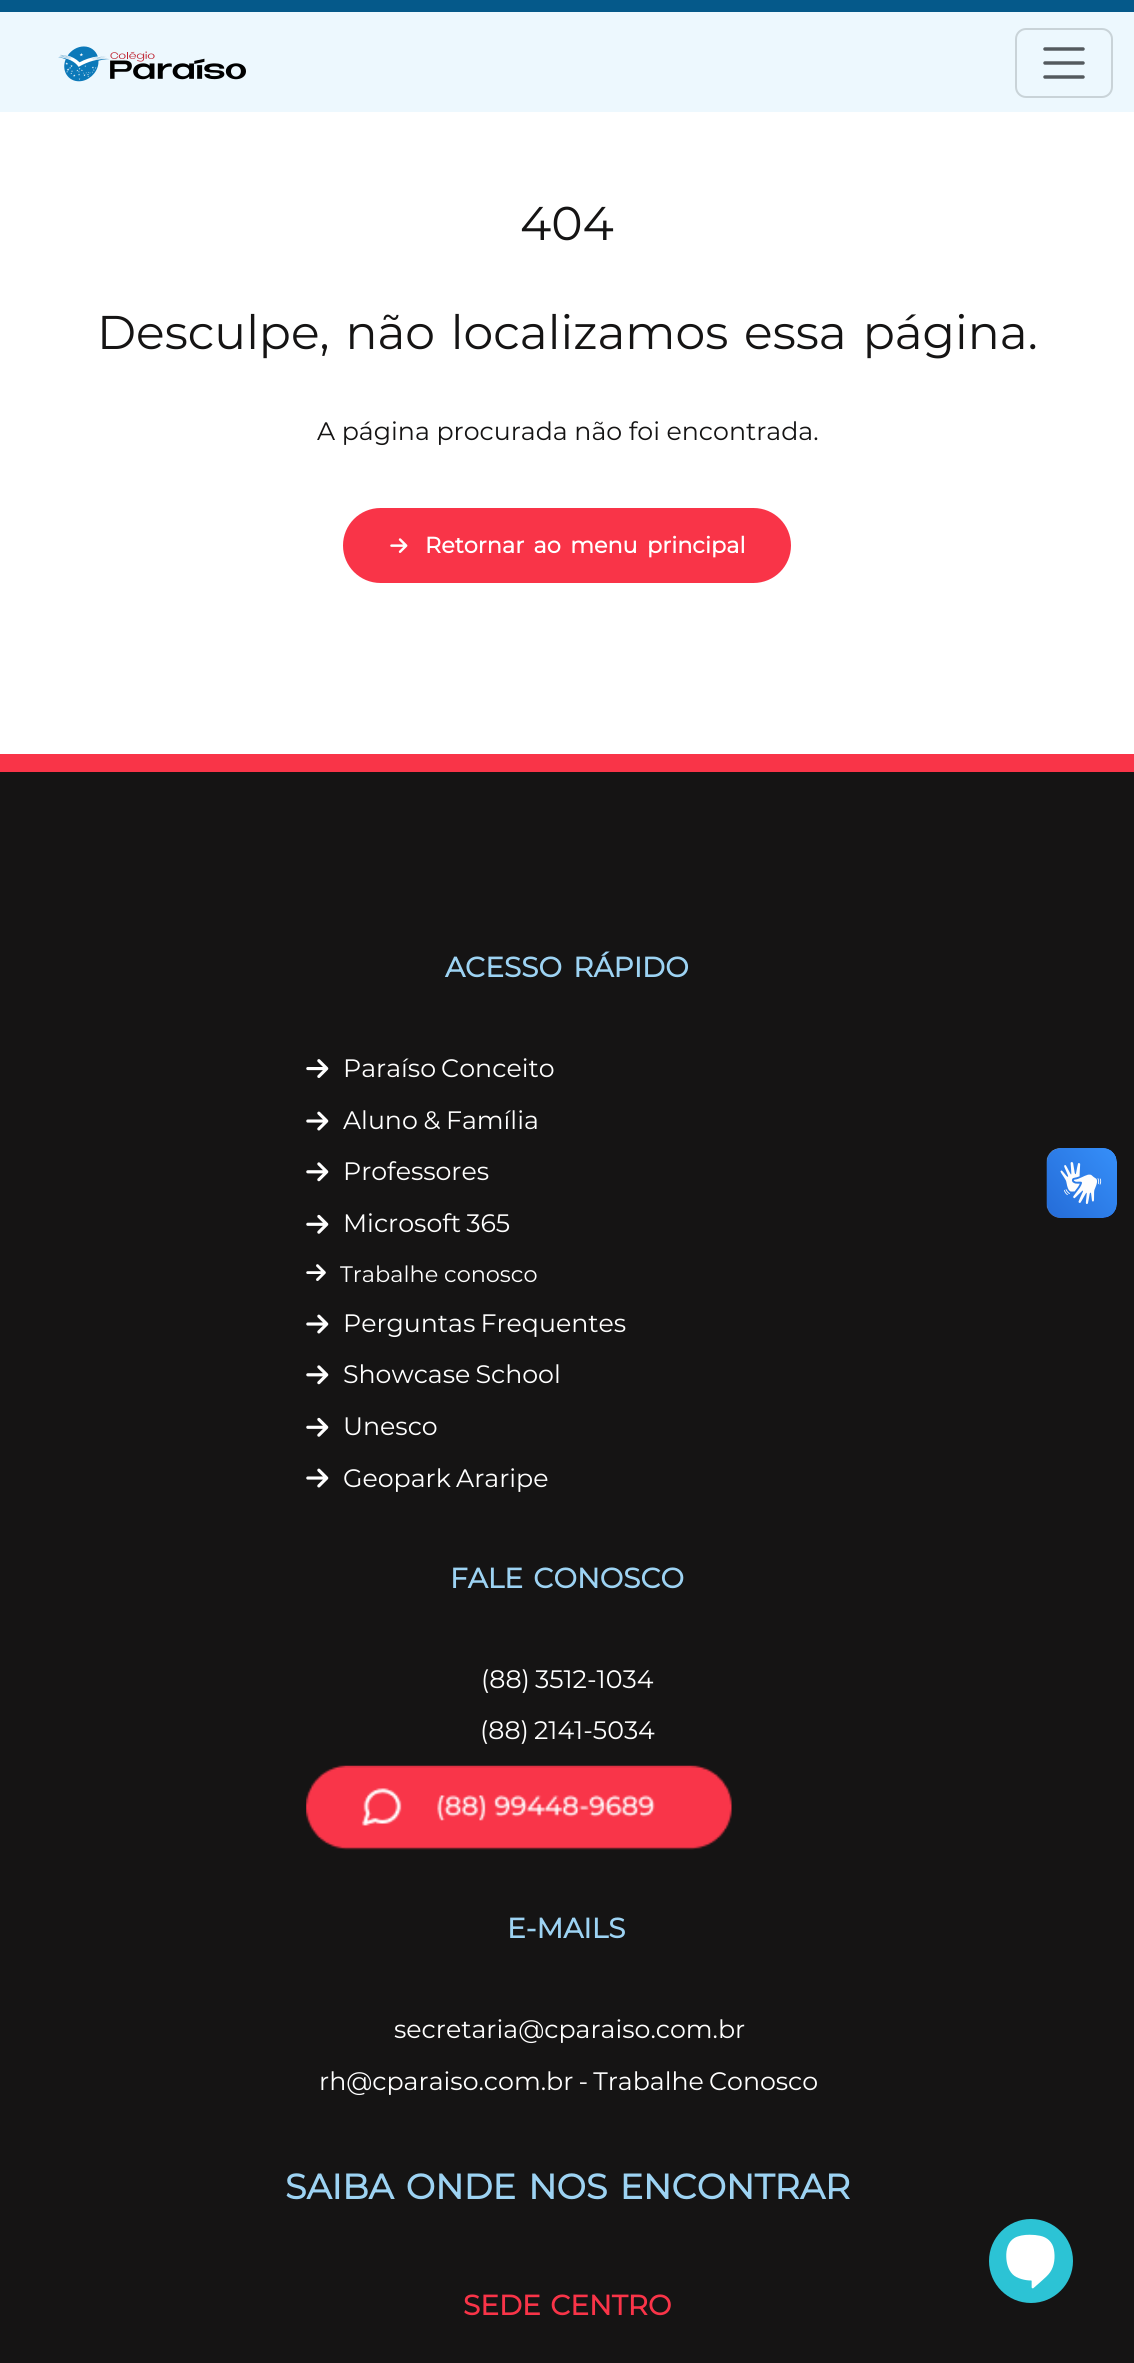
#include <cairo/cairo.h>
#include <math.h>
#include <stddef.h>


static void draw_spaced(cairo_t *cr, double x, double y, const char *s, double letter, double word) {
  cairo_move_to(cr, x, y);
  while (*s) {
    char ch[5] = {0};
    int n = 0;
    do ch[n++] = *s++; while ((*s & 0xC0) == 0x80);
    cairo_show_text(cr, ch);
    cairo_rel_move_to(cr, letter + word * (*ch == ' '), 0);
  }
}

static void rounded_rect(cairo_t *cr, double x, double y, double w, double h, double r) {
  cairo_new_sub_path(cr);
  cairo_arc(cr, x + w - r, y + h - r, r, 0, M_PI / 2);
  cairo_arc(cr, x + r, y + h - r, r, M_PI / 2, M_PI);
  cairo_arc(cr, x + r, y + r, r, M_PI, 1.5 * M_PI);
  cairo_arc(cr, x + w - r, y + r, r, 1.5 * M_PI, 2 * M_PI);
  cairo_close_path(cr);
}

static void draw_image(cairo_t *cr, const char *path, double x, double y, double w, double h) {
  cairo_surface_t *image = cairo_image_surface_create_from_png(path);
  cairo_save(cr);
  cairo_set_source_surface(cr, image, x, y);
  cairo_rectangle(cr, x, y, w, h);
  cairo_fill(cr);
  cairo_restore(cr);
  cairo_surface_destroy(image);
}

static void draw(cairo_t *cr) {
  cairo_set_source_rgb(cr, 1, 1, 1);
  cairo_paint(cr);
  cairo_set_source_rgb(cr, 237 / 255.0, 248 / 255.0, 254 / 255.0);
  cairo_rectangle(cr, 0, 12, 1134, 100);
  cairo_fill(cr);
  cairo_set_source_rgb(cr, 5 / 255.0, 89 / 255.0, 138 / 255.0);
  cairo_rectangle(cr, 0, 0, 1134, 12);
  cairo_fill(cr);
  draw_image(cr, "images/1.png", 58, 46, 188, 36);
  rounded_rect(cr, 1016, 29, 96, 68, 10);
  cairo_set_source_rgb(cr, 201 / 255.0, 211 / 255.0, 216 / 255.0);
  cairo_stroke(cr);
  cairo_new_path(cr);
  cairo_move_to(cr, 1045, 49);
  cairo_line_to(cr, 1083, 49);
  cairo_move_to(cr, 1045, 63);
  cairo_line_to(cr, 1083, 63);
  cairo_move_to(cr, 1045, 77);
  cairo_line_to(cr, 1083, 77);
  cairo_set_source_rgb(cr, 84 / 255.0, 90 / 255.0, 94 / 255.0);
  cairo_set_line_width(cr, 3.5);
  cairo_set_line_cap(cr, CAIRO_LINE_CAP_ROUND);
  cairo_stroke(cr);
  cairo_set_source_rgb(cr, 249 / 255.0, 52 / 255.0, 72 / 255.0);
  rounded_rect(cr, 344, 509, 446, 73, 36.5);
  cairo_fill_preserve(cr);
  cairo_set_line_width(cr, 2);
  cairo_set_line_cap(cr, CAIRO_LINE_CAP_BUTT);
  cairo_stroke(cr);
  draw_image(cr, "images/2.png", 390, 538, 18, 15);
  cairo_set_source_rgb(cr, 21 / 255.0, 20 / 255.0, 20 / 255.0);
  cairo_rectangle(cr, 0, 772, 1134, 1591);
  cairo_fill(cr);
  cairo_set_source_rgb(cr, 249 / 255.0, 52 / 255.0, 72 / 255.0);
  cairo_rectangle(cr, 0, 754, 1134, 18);
  cairo_fill(cr);
  draw_image(cr, "images/3.png", 306, 1059, 23, 19);
  draw_image(cr, "images/4.png", 306, 1111, 23, 20);
  draw_image(cr, "images/5.png", 306, 1162, 23, 20);
  draw_image(cr, "images/6.png", 306, 1214, 23, 20);
  draw_image(cr, "images/7.png", 306, 1264, 20, 17);
  draw_image(cr, "images/4.png", 306, 1314, 23, 20);
  draw_image(cr, "images/5.png", 306, 1365, 23, 20);
  draw_image(cr, "images/6.png", 306, 1417, 23, 20);
  draw_image(cr, "images/4.png", 306, 1468, 23, 20);
  draw_image(cr, "images/8.png", 306, 1765, 426, 85);
  draw_image(cr, "images/9.png", 1046, 1148, 71, 70);
  draw_image(cr, "images/10.png", 1047, 1148, 70, 70);
  cairo_set_source_rgb(cr, 44 / 255.0, 195 / 255.0, 213 / 255.0);
  cairo_arc(cr, 1031, 2261, 42, 0, 2 * M_PI);
  cairo_fill(cr);
  draw_image(cr, "images/11.png", 1006, 2234, 49, 55);
  cairo_select_font_face(cr, "Montserrat", CAIRO_FONT_SLANT_NORMAL, CAIRO_FONT_WEIGHT_NORMAL);
  cairo_set_font_size(cr, 47.3);
  cairo_set_source_rgb(cr, 21 / 255.0, 20 / 255.0, 20 / 255.0);
  cairo_move_to(cr, 520, 240);
  cairo_show_text(cr, "404");
  draw_spaced(cr, 97, 349, "Desculpe, não localizamos essa página.", 0, 3.5);
  cairo_set_font_size(cr, 25.25);
  cairo_move_to(cr, 317, 440);
  cairo_show_text(cr, "A página procurada não foi encontrada.");
  cairo_select_font_face(cr, "Montserrat", CAIRO_FONT_SLANT_NORMAL, CAIRO_FONT_WEIGHT_BOLD);
  cairo_set_font_size(cr, 22.4);
  cairo_set_source_rgb(cr, 1, 1, 1);
  draw_spaced(cr, 425, 553, "Retornar ao menu principal", 0, 3.5);
  cairo_set_font_size(cr, 28);
  cairo_set_source_rgb(cr, 157 / 255.0, 211 / 255.0, 243 / 255.0);
  draw_spaced(cr, 445, 977, "ACESSO RÁPIDO", 0, 4);
  cairo_select_font_face(cr, "Montserrat", CAIRO_FONT_SLANT_NORMAL, CAIRO_FONT_WEIGHT_NORMAL);
  cairo_set_font_size(cr, 25.25);
  cairo_set_source_rgb(cr, 1, 1, 1);
  draw_spaced(cr, 343, 1077, "Paraíso Conceito", 0, -1.5);
  draw_spaced(cr, 343, 1129, "Aluno & Família", 0, -1);
  cairo_move_to(cr, 343, 1180);
  cairo_show_text(cr, "Professores");
  draw_spaced(cr, 343, 1232, "Microsoft 365", 0, -1.5);
  cairo_set_font_size(cr, 22.4);
  cairo_move_to(cr, 340, 1282);
  cairo_show_text(cr, "Trabalhe conosco");
  cairo_set_font_size(cr, 25.25);
  draw_spaced(cr, 343, 1332, "Perguntas Frequentes", 0, -1.5);
  draw_spaced(cr, 343, 1383, "Showcase School", 0, -1.5);
  cairo_move_to(cr, 343, 1435);
  cairo_show_text(cr, "Unesco");
  draw_spaced(cr, 343, 1487, "Geopark Araripe", 0, -1.5);
  cairo_select_font_face(cr, "Montserrat", CAIRO_FONT_SLANT_NORMAL, CAIRO_FONT_WEIGHT_BOLD);
  cairo_set_font_size(cr, 28);
  cairo_set_source_rgb(cr, 157 / 255.0, 211 / 255.0, 243 / 255.0);
  draw_spaced(cr, 450, 1588, "FALE CONOSCO", 0, 3);
  cairo_select_font_face(cr, "Montserrat", CAIRO_FONT_SLANT_NORMAL, CAIRO_FONT_WEIGHT_NORMAL);
  cairo_set_font_size(cr, 25.25);
  cairo_set_source_rgb(cr, 1, 1, 1);
  draw_spaced(cr, 481, 1688, "(88) 3512-1034", 0, -1.5);
  draw_spaced(cr, 480, 1739, "(88) 2141-5034", 0, -1.5);
  cairo_select_font_face(cr, "Montserrat", CAIRO_FONT_SLANT_NORMAL, CAIRO_FONT_WEIGHT_BOLD);
  cairo_set_font_size(cr, 28);
  cairo_set_source_rgb(cr, 157 / 255.0, 211 / 255.0, 243 / 255.0);
  cairo_move_to(cr, 507, 1938);
  cairo_show_text(cr, "E-MAILS");
  cairo_select_font_face(cr, "Montserrat", CAIRO_FONT_SLANT_NORMAL, CAIRO_FONT_WEIGHT_NORMAL);
  cairo_set_font_size(cr, 25.25);
  cairo_set_source_rgb(cr, 1, 1, 1);
  cairo_move_to(cr, 394, 2038);
  cairo_show_text(cr, "secretaria@cparaiso.com.br");
  draw_spaced(cr, 319, 2090, "rh@cparaiso.com.br - Trabalhe Conosco", 0, -1.5);
  cairo_select_font_face(cr, "Montserrat", CAIRO_FONT_SLANT_NORMAL, CAIRO_FONT_WEIGHT_BOLD);
  cairo_set_font_size(cr, 35);
  cairo_set_source_rgb(cr, 157 / 255.0, 211 / 255.0, 243 / 255.0);
  draw_spaced(cr, 285, 2199, "SAIBA ONDE NOS ENCONTRAR", 0, 3);
  cairo_set_font_size(cr, 28);
  cairo_set_source_rgb(cr, 249 / 255.0, 52 / 255.0, 72 / 255.0);
  draw_spaced(cr, 463, 2315, "SEDE CENTRO", 0, 2);
}

int main(void) {
  cairo_surface_t *surface = cairo_image_surface_create(CAIRO_FORMAT_RGB24, 1134, 2363);
  cairo_t *cr = cairo_create(surface);
  cairo_font_options_t *options = cairo_font_options_create();
  cairo_font_options_set_hint_metrics(options, CAIRO_HINT_METRICS_OFF);
  cairo_font_options_set_hint_style(options, CAIRO_HINT_STYLE_NONE);
  cairo_set_font_options(cr, options);
  cairo_set_miter_limit(cr, 4);
  draw(cr);
  cairo_surface_write_to_png(surface, "out.png");
  cairo_font_options_destroy(options);
  cairo_destroy(cr);
  cairo_surface_destroy(surface);
  return 0;
}
